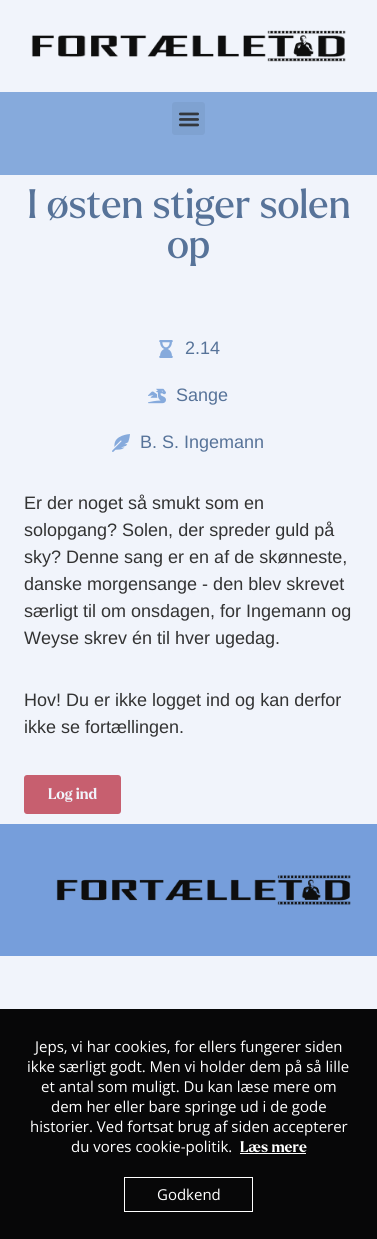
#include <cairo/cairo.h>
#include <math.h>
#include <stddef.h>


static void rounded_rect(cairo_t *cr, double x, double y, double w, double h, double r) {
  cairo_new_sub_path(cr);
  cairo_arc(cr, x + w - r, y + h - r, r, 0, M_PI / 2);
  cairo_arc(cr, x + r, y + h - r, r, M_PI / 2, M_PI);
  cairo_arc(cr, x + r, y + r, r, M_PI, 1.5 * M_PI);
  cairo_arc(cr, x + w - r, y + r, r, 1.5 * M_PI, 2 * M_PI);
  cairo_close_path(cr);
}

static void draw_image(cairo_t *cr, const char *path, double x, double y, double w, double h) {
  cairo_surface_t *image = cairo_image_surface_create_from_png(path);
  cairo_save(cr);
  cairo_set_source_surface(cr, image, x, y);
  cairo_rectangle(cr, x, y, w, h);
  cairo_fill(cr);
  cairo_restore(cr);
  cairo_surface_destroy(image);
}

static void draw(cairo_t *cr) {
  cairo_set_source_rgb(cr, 241 / 255.0, 244 / 255.0, 251 / 255.0);
  cairo_paint(cr);
  draw_image(cr, "images/1.png", 31, 30, 315, 32);
  cairo_set_source_rgb(cr, 134 / 255.0, 170 / 255.0, 220 / 255.0);
  cairo_rectangle(cr, 0, 92, 377, 83);
  cairo_fill(cr);
  cairo_set_source_rgb(cr, 127 / 255.0, 162 / 255.0, 209 / 255.0);
  rounded_rect(cr, 172, 102, 33, 33, 3);
  cairo_fill(cr);
  draw_image(cr, "images/2.png", 178, 112, 21, 15);
  draw_image(cr, "images/3.png", 159, 340, 14, 18);
  draw_image(cr, "images/4.png", 148, 388, 18, 16);
  draw_image(cr, "images/5.png", 112, 434, 18, 18);
  cairo_set_source_rgb(cr, 199 / 255.0, 95 / 255.0, 111 / 255.0);
  rounded_rect(cr, 24, 775, 97, 39, 3);
  cairo_fill(cr);
  cairo_set_source_rgb(cr, 118 / 255.0, 158 / 255.0, 219 / 255.0);
  cairo_rectangle(cr, 0, 824, 377, 132);
  cairo_fill(cr);
  draw_image(cr, "images/6.png", 56, 875, 295, 30);
  cairo_set_source_rgb(cr, 7 / 255.0, 7 / 255.0, 8 / 255.0);
  cairo_rectangle(cr, 0, 1009, 377, 230);
  cairo_fill(cr);
  cairo_set_source_rgb(cr, 1, 1, 1);
  cairo_rectangle(cr, 240, 1153, 66, 1);
  cairo_fill(cr);
  cairo_rectangle(cr, 124.5, 1177.5, 128, 34);
  cairo_set_line_width(cr, 1);
  cairo_stroke(cr);
  cairo_select_font_face(cr, "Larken", CAIRO_FONT_SLANT_NORMAL, CAIRO_FONT_WEIGHT_NORMAL);
  cairo_set_font_size(cr, 40);
  cairo_set_source_rgb(cr, 87 / 255.0, 115 / 255.0, 153 / 255.0);
  cairo_move_to(cr, 27, 218);
  cairo_show_text(cr, "I østen stiger solen");
  cairo_move_to(cr, 167, 258);
  cairo_show_text(cr, "op");
  cairo_select_font_face(cr, "Liberation Sans", CAIRO_FONT_SLANT_NORMAL, CAIRO_FONT_WEIGHT_NORMAL);
  cairo_set_font_size(cr, 18);
  cairo_move_to(cr, 185, 354);
  cairo_show_text(cr, "2.14");
  cairo_move_to(cr, 176, 401);
  cairo_show_text(cr, "Sange");
  cairo_move_to(cr, 140, 448);
  cairo_show_text(cr, "B. S. Ingemann");
  cairo_set_source_rgb(cr, 51 / 255.0, 51 / 255.0, 51 / 255.0);
  cairo_move_to(cr, 24, 509);
  cairo_show_text(cr, "Er der noget så smukt som en");
  cairo_move_to(cr, 24, 536);
  cairo_show_text(cr, "solopgang? Solen, der spreder guld på");
  cairo_move_to(cr, 24, 563);
  cairo_show_text(cr, "sky? Denne sang er en af de skønneste,");
  cairo_move_to(cr, 24, 590);
  cairo_show_text(cr, "danske morgensange - den blev skrevet");
  cairo_move_to(cr, 24, 617);
  cairo_show_text(cr, "særligt til om onsdagen, for Ingemann og");
  cairo_move_to(cr, 24, 644);
  cairo_show_text(cr, "Weyse skrev én til hver ugedag.");
  cairo_move_to(cr, 24, 706);
  cairo_show_text(cr, "Hov! Du er ikke logget ind og kan derfor");
  cairo_move_to(cr, 24, 733);
  cairo_show_text(cr, "ikke se fortællingen.");
  cairo_select_font_face(cr, "Larken", CAIRO_FONT_SLANT_NORMAL, CAIRO_FONT_WEIGHT_BOLD);
  cairo_set_font_size(cr, 15);
  cairo_set_source_rgb(cr, 241 / 255.0, 244 / 255.0, 251 / 255.0);
  cairo_move_to(cr, 48, 799);
  cairo_show_text(cr, "Log ind");
  cairo_select_font_face(cr, "Open Sans", CAIRO_FONT_SLANT_NORMAL, CAIRO_FONT_WEIGHT_NORMAL);
  cairo_set_source_rgb(cr, 1, 1, 1);
  cairo_move_to(cr, 35, 1052);
  cairo_show_text(cr, "Jeps, vi har cookies, for ellers fungerer siden");
  cairo_move_to(cr, 27, 1072);
  cairo_show_text(cr, "ikke særligt godt. Men vi holder dem på så lille");
  cairo_move_to(cr, 41, 1092);
  cairo_show_text(cr, "et antal som muligt. Du kan læse mere om");
  cairo_move_to(cr, 51, 1112);
  cairo_show_text(cr, "dem her eller bare springe ud i de gode");
  cairo_move_to(cr, 30, 1132);
  cairo_show_text(cr, "historier. Ved fortsat brug af siden accepterer");
  cairo_move_to(cr, 71, 1152);
  cairo_show_text(cr, "du vores cookie-politik.");
  cairo_select_font_face(cr, "Larken", CAIRO_FONT_SLANT_NORMAL, CAIRO_FONT_WEIGHT_BOLD);
  cairo_move_to(cr, 240, 1152);
  cairo_show_text(cr, "Læs mere");
  cairo_select_font_face(cr, "Open Sans", CAIRO_FONT_SLANT_NORMAL, CAIRO_FONT_WEIGHT_NORMAL);
  cairo_move_to(cr, 157, 1200);
  cairo_show_text(cr, "Godkend");
}

int main(void) {
  cairo_surface_t *surface = cairo_image_surface_create(CAIRO_FORMAT_RGB24, 377, 1239);
  cairo_t *cr = cairo_create(surface);
  cairo_font_options_t *options = cairo_font_options_create();
  cairo_font_options_set_hint_metrics(options, CAIRO_HINT_METRICS_OFF);
  cairo_font_options_set_hint_style(options, CAIRO_HINT_STYLE_NONE);
  cairo_set_font_options(cr, options);
  cairo_set_miter_limit(cr, 4);
  draw(cr);
  cairo_surface_write_to_png(surface, "out.png");
  cairo_font_options_destroy(options);
  cairo_destroy(cr);
  cairo_surface_destroy(surface);
  return 0;
}
